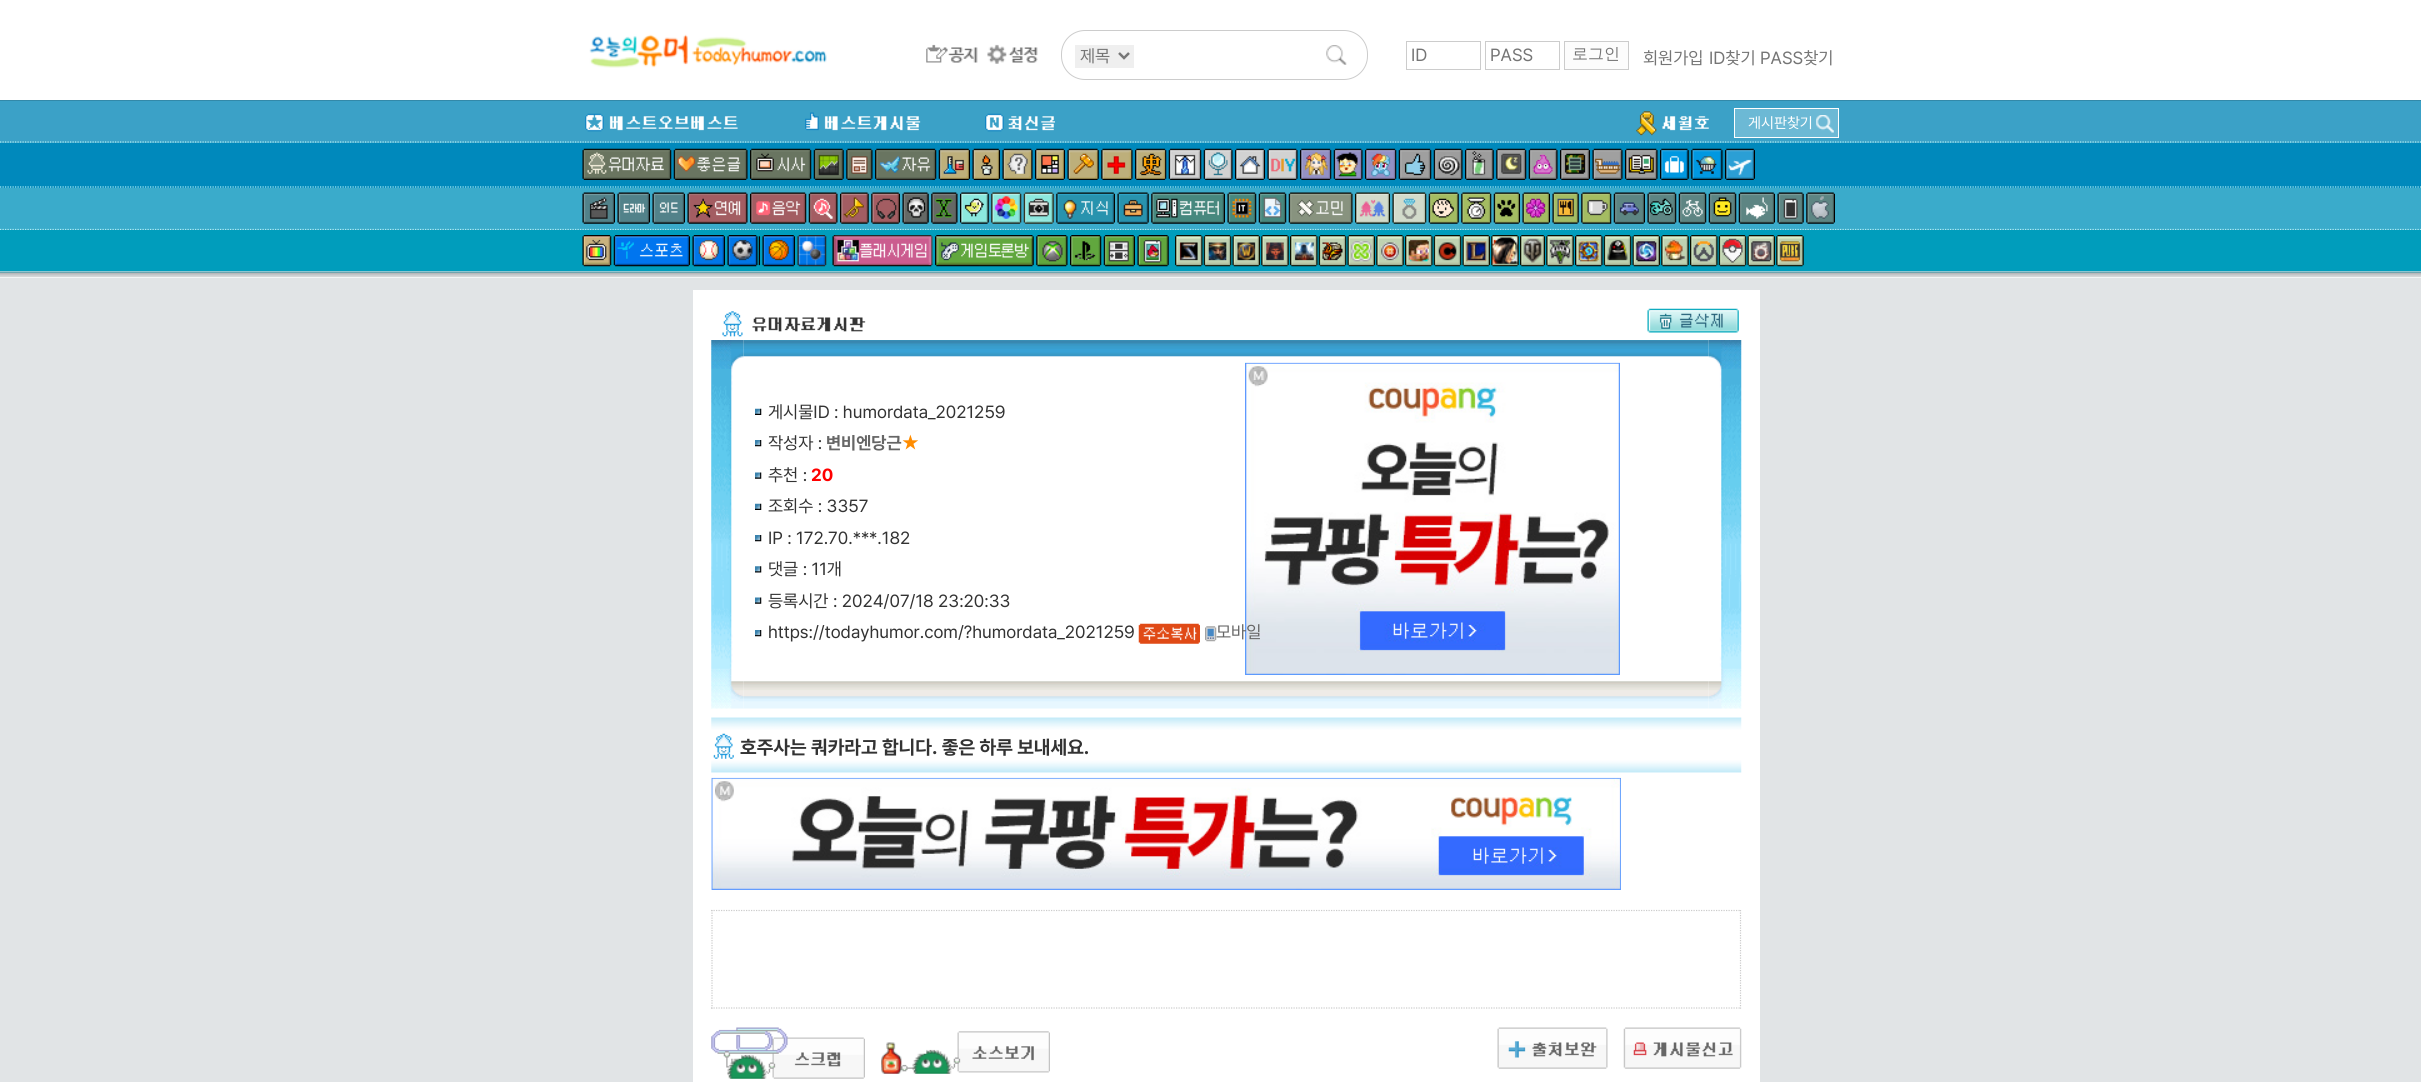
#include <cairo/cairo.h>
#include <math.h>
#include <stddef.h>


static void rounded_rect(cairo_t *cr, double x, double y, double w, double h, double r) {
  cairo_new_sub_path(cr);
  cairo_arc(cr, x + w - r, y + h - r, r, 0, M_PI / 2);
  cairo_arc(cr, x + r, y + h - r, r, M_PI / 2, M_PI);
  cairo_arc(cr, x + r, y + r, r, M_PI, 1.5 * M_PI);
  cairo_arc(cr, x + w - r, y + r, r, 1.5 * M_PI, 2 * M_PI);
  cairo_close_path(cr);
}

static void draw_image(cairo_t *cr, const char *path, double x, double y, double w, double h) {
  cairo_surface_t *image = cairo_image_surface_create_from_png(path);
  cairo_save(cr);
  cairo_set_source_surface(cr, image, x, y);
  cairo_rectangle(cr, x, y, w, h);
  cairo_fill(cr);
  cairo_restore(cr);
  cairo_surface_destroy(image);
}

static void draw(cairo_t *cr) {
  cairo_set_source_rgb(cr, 1, 1, 1);
  cairo_paint(cr);
  draw_image(cr, "images/1.png", 589, 34, 238, 34);
  draw_image(cr, "images/2.png", 926, 44, 52, 19);
  draw_image(cr, "images/3.png", 987, 44, 51, 20);
  rounded_rect(cr, 1061.5, 30.5, 306, 49, 23.5);
  cairo_set_source_rgb(cr, 204 / 255.0, 204 / 255.0, 204 / 255.0);
  cairo_set_line_width(cr, 1);
  cairo_stroke(cr);
  cairo_set_source_rgb(cr, 239 / 255.0, 239 / 255.0, 239 / 255.0);
  cairo_rectangle(cr, 1075, 45, 59, 23);
  cairo_fill(cr);
  cairo_new_path(cr);
  cairo_move_to(cr, 1119, 53);
  cairo_line_to(cr, 1124, 58);
  cairo_line_to(cr, 1129, 53);
  cairo_set_source_rgb(cr, 119 / 255.0, 119 / 255.0, 119 / 255.0);
  cairo_set_line_width(cr, 2.5);
  cairo_stroke(cr);
  draw_image(cr, "images/4.png", 1326, 45, 21, 20);
  cairo_rectangle(cr, 1406.5, 41.5, 74, 28);
  cairo_set_source_rgb(cr, 204 / 255.0, 204 / 255.0, 204 / 255.0);
  cairo_set_line_width(cr, 1);
  cairo_stroke(cr);
  cairo_rectangle(cr, 1485.5, 41.5, 74, 28);
  cairo_stroke(cr);
  cairo_set_source_rgb(cr, 252 / 255.0, 252 / 255.0, 252 / 255.0);
  cairo_rectangle(cr, 1564.5, 41.5, 64, 28);
  cairo_fill_preserve(cr);
  cairo_set_source_rgb(cr, 204 / 255.0, 204 / 255.0, 204 / 255.0);
  cairo_stroke(cr);
  cairo_set_source_rgb(cr, 59 / 255.0, 161 / 255.0, 199 / 255.0);
  cairo_rectangle(cr, 0, 101, 2421, 42);
  cairo_fill(cr);
  cairo_set_source_rgb(cr, 50 / 255.0, 137 / 255.0, 169 / 255.0);
  cairo_rectangle(cr, 0, 100, 2421, 1);
  cairo_fill(cr);
  cairo_new_path(cr);
  cairo_move_to(cr, 0, 142);
  cairo_line_to(cr, 2421, 142);
  cairo_set_source_rgb(cr, 176 / 255.0, 238 / 255.0, 245 / 255.0);
  cairo_set_line_width(cr, 1.2);
  cairo_set_dash(cr, (double[]){1.25, 1.25}, 2, 0);
  cairo_stroke(cr);
  draw_image(cr, "images/5.png", 585, 113, 153, 19);
  draw_image(cr, "images/6.png", 805, 112, 116, 19);
  draw_image(cr, "images/7.png", 985, 113, 70, 19);
  draw_image(cr, "images/8.png", 1636, 111, 73, 25);
  cairo_set_source_rgb(cr, 108 / 255.0, 185 / 255.0, 213 / 255.0);
  cairo_rectangle(cr, 1734.5, 108.5, 104, 29);
  cairo_fill_preserve(cr);
  cairo_set_source_rgb(cr, 1, 1, 1);
  cairo_set_line_width(cr, 1);
  cairo_set_dash(cr, NULL, 0, 0);
  cairo_stroke(cr);
  draw_image(cr, "images/9.png", 1816, 115, 18, 18);
  cairo_set_source_rgb(cr, 0, 137 / 255.0, 188 / 255.0);
  cairo_rectangle(cr, 0, 143, 2421, 45);
  cairo_fill(cr);
  cairo_new_path(cr);
  cairo_move_to(cr, 0, 187);
  cairo_line_to(cr, 2421, 187);
  cairo_set_source_rgb(cr, 176 / 255.0, 238 / 255.0, 245 / 255.0);
  cairo_set_line_width(cr, 1.2);
  cairo_set_dash(cr, (double[]){1.25, 1.25}, 2, 0);
  cairo_stroke(cr);
  draw_image(cr, "images/10.png", 582, 148, 90, 32);
  draw_image(cr, "images/11.png", 673, 148, 75, 32);
  draw_image(cr, "images/12.png", 750, 148, 62, 32);
  draw_image(cr, "images/13.png", 813, 148, 31, 32);
  draw_image(cr, "images/14.png", 846, 148, 27, 32);
  draw_image(cr, "images/15.png", 875, 148, 62, 32);
  draw_image(cr, "images/16.png", 938, 148, 32, 32);
  draw_image(cr, "images/17.png", 972, 148, 28, 32);
  draw_image(cr, "images/18.png", 1002, 148, 31, 32);
  draw_image(cr, "images/19.png", 1035, 148, 30, 32);
  draw_image(cr, "images/20.png", 1067, 148, 32, 32);
  draw_image(cr, "images/21.png", 1101, 148, 32, 32);
  draw_image(cr, "images/22.png", 1135, 148, 32, 32);
  draw_image(cr, "images/23.png", 1168, 148, 34, 32);
  draw_image(cr, "images/24.png", 1203, 148, 30, 32);
  draw_image(cr, "images/25.png", 1235, 148, 30, 32);
  draw_image(cr, "images/26.png", 1267, 148, 31, 32);
  draw_image(cr, "images/27.png", 1300, 148, 32, 32);
  draw_image(cr, "images/28.png", 1333, 148, 30, 32);
  draw_image(cr, "images/29.png", 1365, 148, 32, 32);
  draw_image(cr, "images/30.png", 1398, 148, 34, 32);
  draw_image(cr, "images/31.png", 1433, 148, 30, 32);
  draw_image(cr, "images/32.png", 1465, 148, 29, 32);
  draw_image(cr, "images/33.png", 1496, 148, 31, 32);
  draw_image(cr, "images/34.png", 1528, 148, 30, 32);
  draw_image(cr, "images/35.png", 1560, 148, 30, 32);
  draw_image(cr, "images/36.png", 1592, 148, 31, 32);
  draw_image(cr, "images/37.png", 1625, 148, 33, 32);
  draw_image(cr, "images/38.png", 1660, 148, 29, 32);
  draw_image(cr, "images/39.png", 1691, 148, 32, 32);
  draw_image(cr, "images/40.png", 1725, 148, 30, 32);
  cairo_set_source_rgb(cr, 58 / 255.0, 171 / 255.0, 203 / 255.0);
  cairo_rectangle(cr, 0, 188, 2421, 42);
  cairo_fill(cr);
  cairo_new_path(cr);
  cairo_move_to(cr, 0, 229.5);
  cairo_line_to(cr, 2421, 229.5);
  cairo_set_source_rgb(cr, 176 / 255.0, 238 / 255.0, 245 / 255.0);
  cairo_stroke(cr);
  draw_image(cr, "images/41.png", 582, 192, 33, 32);
  draw_image(cr, "images/42.png", 617, 192, 33, 32);
  draw_image(cr, "images/43.png", 652, 192, 33, 32);
  draw_image(cr, "images/44.png", 687, 192, 61, 32);
  draw_image(cr, "images/45.png", 750, 192, 57, 32);
  draw_image(cr, "images/46.png", 808, 192, 30, 32);
  draw_image(cr, "images/47.png", 840, 192, 29, 32);
  draw_image(cr, "images/48.png", 871, 192, 29, 32);
  draw_image(cr, "images/49.png", 902, 192, 27, 32);
  draw_image(cr, "images/50.png", 931, 192, 27, 32);
  draw_image(cr, "images/51.png", 960, 192, 29, 32);
  draw_image(cr, "images/52.png", 991, 192, 31, 32);
  draw_image(cr, "images/53.png", 1023, 192, 31, 32);
  draw_image(cr, "images/54.png", 1056, 192, 59, 32);
  draw_image(cr, "images/55.png", 1117, 192, 32, 32);
  draw_image(cr, "images/56.png", 1151, 192, 74, 32);
  draw_image(cr, "images/57.png", 1227, 192, 30, 32);
  draw_image(cr, "images/58.png", 1258, 192, 29, 32);
  draw_image(cr, "images/59.png", 1288, 192, 65, 32);
  draw_image(cr, "images/60.png", 1355, 192, 35, 32);
  draw_image(cr, "images/61.png", 1392, 192, 35, 32);
  draw_image(cr, "images/62.png", 1428, 192, 31, 32);
  draw_image(cr, "images/63.png", 1461, 192, 31, 32);
  draw_image(cr, "images/64.png", 1493, 192, 27, 32);
  draw_image(cr, "images/65.png", 1522, 192, 28, 32);
  draw_image(cr, "images/66.png", 1552, 192, 27, 32);
  draw_image(cr, "images/67.png", 1581, 192, 31, 32);
  draw_image(cr, "images/68.png", 1613, 192, 32, 32);
  draw_image(cr, "images/69.png", 1647, 192, 30, 32);
  draw_image(cr, "images/70.png", 1678, 192, 29, 32);
  draw_image(cr, "images/71.png", 1708, 192, 29, 32);
  draw_image(cr, "images/72.png", 1738, 192, 37, 32);
  draw_image(cr, "images/73.png", 1777, 192, 27, 32);
  draw_image(cr, "images/74.png", 1806, 192, 29, 32);
  cairo_set_source_rgb(cr, 0, 157 / 255.0, 188 / 255.0);
  cairo_rectangle(cr, 0, 230, 2421, 41);
  cairo_fill(cr);
  draw_image(cr, "images/75.png", 582, 235, 30, 32);
  draw_image(cr, "images/76.png", 613, 235, 77, 32);
  draw_image(cr, "images/77.png", 692, 235, 33, 32);
  draw_image(cr, "images/78.png", 727, 235, 33, 32);
  draw_image(cr, "images/79.png", 762, 235, 33, 32);
  draw_image(cr, "images/80.png", 797, 235, 30, 32);
  draw_image(cr, "images/81.png", 832, 235, 101, 32);
  draw_image(cr, "images/82.png", 935, 235, 99, 32);
  draw_image(cr, "images/83.png", 1036, 235, 32, 32);
  draw_image(cr, "images/84.png", 1070, 235, 32, 32);
  draw_image(cr, "images/85.png", 1103, 235, 32, 32);
  draw_image(cr, "images/86.png", 1137, 235, 32, 32);
  draw_image(cr, "images/87.png", 1175, 235, 28, 32);
  draw_image(cr, "images/88.png", 1203, 235, 29, 32);
  draw_image(cr, "images/89.png", 1232, 235, 28, 32);
  draw_image(cr, "images/90.png", 1261, 235, 28, 32);
  draw_image(cr, "images/91.png", 1290, 235, 28, 32);
  draw_image(cr, "images/92.png", 1318, 235, 29, 32);
  draw_image(cr, "images/93.png", 1347, 235, 28, 32);
  draw_image(cr, "images/94.png", 1376, 235, 28, 32);
  draw_image(cr, "images/95.png", 1405, 235, 28, 32);
  draw_image(cr, "images/96.png", 1433, 235, 29, 32);
  draw_image(cr, "images/97.png", 1462, 235, 28, 32);
  draw_image(cr, "images/98.png", 1491, 235, 28, 32);
  draw_image(cr, "images/99.png", 1520, 235, 25, 32);
  draw_image(cr, "images/100.png", 1546, 235, 28, 32);
  draw_image(cr, "images/101.png", 1575, 235, 28, 32);
  draw_image(cr, "images/102.png", 1603, 235, 29, 32);
  draw_image(cr, "images/103.png", 1632, 235, 28, 32);
  draw_image(cr, "images/104.png", 1661, 235, 28, 32);
  draw_image(cr, "images/105.png", 1690, 235, 28, 32);
  draw_image(cr, "images/106.png", 1718, 235, 29, 32);
  draw_image(cr, "images/107.png", 1747, 235, 28, 32);
  draw_image(cr, "images/108.png", 1776, 235, 28, 32);
  draw_image(cr, "images/109.png", 0, 271, 2421, 7);
  cairo_set_source_rgb(cr, 225 / 255.0, 228 / 255.0, 230 / 255.0);
  cairo_rectangle(cr, 0, 278, 2421, 804);
  cairo_fill(cr);
  cairo_set_source_rgb(cr, 1, 1, 1);
  cairo_rectangle(cr, 693, 290, 1067, 792);
  cairo_fill(cr);
  draw_image(cr, "images/110.png", 722, 311, 144, 26);
  draw_image(cr, "images/111.png", 1647, 308, 92, 25);
  draw_image(cr, "images/112.png", 711, 340, 33, 369);
  draw_image(cr, "images/113.png", 743, 340, 966, 369);
  draw_image(cr, "images/114.png", 1708, 340, 34, 369);
  draw_image(cr, "images/115.png", 755, 408, 7, 7);
  draw_image(cr, "images/116.png", 755, 440, 7, 7);
  draw_image(cr, "images/117.png", 755, 472, 7, 7);
  draw_image(cr, "images/115.png", 755, 503, 7, 7);
  draw_image(cr, "images/116.png", 755, 535, 7, 7);
  draw_image(cr, "images/118.png", 755, 566, 7, 7);
  draw_image(cr, "images/117.png", 755, 597, 7, 7);
  draw_image(cr, "images/116.png", 755, 630, 7, 7);
  draw_image(cr, "images/119.png", 1138, 623, 62, 21);
  draw_image(cr, "images/120.png", 1205, 626, 12, 16);
  draw_image(cr, "images/121.png", 1245, 362, 375, 313);
  draw_image(cr, "images/124.png", 711, 777, 910, 113);
  draw_image(cr, "images/122.png", 711, 708, 1031, 70);
  draw_image(cr, "images/123.png", 713, 733, 21, 26);
  cairo_new_path(cr);
  cairo_move_to(cr, 711, 910.5);
  cairo_line_to(cr, 1741, 910.5);
  cairo_set_source_rgb(cr, 204 / 255.0, 204 / 255.0, 204 / 255.0);
  cairo_stroke(cr);
  cairo_new_path(cr);
  cairo_move_to(cr, 1740.5, 910);
  cairo_line_to(cr, 1740.5, 1009);
  cairo_stroke(cr);
  cairo_new_path(cr);
  cairo_move_to(cr, 711, 1008);
  cairo_line_to(cr, 1741, 1008);
  cairo_stroke(cr);
  cairo_new_path(cr);
  cairo_move_to(cr, 712, 910);
  cairo_line_to(cr, 712, 1009);
  cairo_stroke(cr);
  draw_image(cr, "images/125.png", 711, 1027, 154, 52);
  draw_image(cr, "images/126.png", 881, 1031, 169, 43);
  draw_image(cr, "images/127.png", 1497, 1027, 111, 42);
  draw_image(cr, "images/128.png", 1623, 1027, 119, 42);
  cairo_select_font_face(cr, "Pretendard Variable", CAIRO_FONT_SLANT_NORMAL, CAIRO_FONT_WEIGHT_NORMAL);
  cairo_set_font_size(cr, 17.5);
  cairo_set_source_rgb(cr, 117 / 255.0, 117 / 255.0, 117 / 255.0);
  cairo_move_to(cr, 1080, 62);
  cairo_show_text(cr, "제목");
  cairo_move_to(cr, 1411, 61);
  cairo_show_text(cr, "ID");
  cairo_move_to(cr, 1490, 61);
  cairo_show_text(cr, "PASS");
  cairo_select_font_face(cr, "WenQuanYi Zen Hei Medium", CAIRO_FONT_SLANT_NORMAL, CAIRO_FONT_WEIGHT_NORMAL);
  cairo_set_font_size(cr, 16);
  cairo_move_to(cr, 1572, 59);
  cairo_show_text(cr, "로그인");
  cairo_select_font_face(cr, "Pretendard Variable", CAIRO_FONT_SLANT_NORMAL, CAIRO_FONT_WEIGHT_NORMAL);
  cairo_set_font_size(cr, 17.5);
  cairo_move_to(cr, 1643, 64);
  cairo_show_text(cr, "회원가입");
  cairo_move_to(cr, 1709, 64);
  cairo_show_text(cr, "ID찾기");
  cairo_move_to(cr, 1760, 64);
  cairo_show_text(cr, "PASS찾기");
  cairo_set_font_size(cr, 15);
  cairo_set_source_rgb(cr, 1, 1, 1);
  cairo_move_to(cr, 1748, 128);
  cairo_show_text(cr, "게시판찾기");
  cairo_set_font_size(cr, 17.5);
  cairo_set_source_rgb(cr, 51 / 255.0, 51 / 255.0, 51 / 255.0);
  cairo_move_to(cr, 768, 418);
  cairo_show_text(cr, "게시물ID : humordata_2021259");
  cairo_move_to(cr, 768, 449);
  cairo_show_text(cr, "작성자 :");
  cairo_select_font_face(cr, "Pretendard Variable", CAIRO_FONT_SLANT_NORMAL, CAIRO_FONT_WEIGHT_BOLD);
  cairo_set_source_rgb(cr, 102 / 255.0, 102 / 255.0, 102 / 255.0);
  cairo_move_to(cr, 826, 449);
  cairo_show_text(cr, "변비엔당근");
  cairo_select_font_face(cr, "Pretendard Variable", CAIRO_FONT_SLANT_NORMAL, CAIRO_FONT_WEIGHT_NORMAL);
  cairo_set_source_rgb(cr, 1, 140 / 255.0, 0);
  cairo_move_to(cr, 902, 449);
  cairo_show_text(cr, "★");
  cairo_set_source_rgb(cr, 51 / 255.0, 51 / 255.0, 51 / 255.0);
  cairo_move_to(cr, 768, 481);
  cairo_show_text(cr, "추천 :");
  cairo_select_font_face(cr, "Pretendard Variable", CAIRO_FONT_SLANT_NORMAL, CAIRO_FONT_WEIGHT_BOLD);
  cairo_set_source_rgb(cr, 1, 0, 0);
  cairo_move_to(cr, 811, 481);
  cairo_show_text(cr, "20");
  cairo_select_font_face(cr, "Pretendard Variable", CAIRO_FONT_SLANT_NORMAL, CAIRO_FONT_WEIGHT_NORMAL);
  cairo_set_source_rgb(cr, 51 / 255.0, 51 / 255.0, 51 / 255.0);
  cairo_move_to(cr, 768, 512);
  cairo_show_text(cr, "조회수 : 3357");
  cairo_move_to(cr, 768, 544);
  cairo_show_text(cr, "IP : 172.70.***.182");
  cairo_move_to(cr, 768, 575);
  cairo_show_text(cr, "댓글 : 11개");
  cairo_move_to(cr, 768, 607);
  cairo_show_text(cr, "등록시간 : 2024/07/18 23:20:33");
  cairo_move_to(cr, 768, 638);
  cairo_show_text(cr, "https://todayhumor.com/?humordata_2021259");
  cairo_set_source_rgb(cr, 102 / 255.0, 102 / 255.0, 102 / 255.0);
  cairo_move_to(cr, 1216, 638);
  cairo_show_text(cr, "모바일");
  cairo_select_font_face(cr, "Pretendard Variable", CAIRO_FONT_SLANT_NORMAL, CAIRO_FONT_WEIGHT_BOLD);
  cairo_set_font_size(cr, 19.25);
  cairo_set_source_rgb(cr, 51 / 255.0, 51 / 255.0, 51 / 255.0);
  cairo_move_to(cr, 740, 754);
  cairo_show_text(cr, "호주사는 쿼카라고 합니다. 좋은 하루 보내세요.");
}

int main(void) {
  cairo_surface_t *surface = cairo_image_surface_create(CAIRO_FORMAT_RGB24, 2421, 1082);
  cairo_t *cr = cairo_create(surface);
  cairo_font_options_t *options = cairo_font_options_create();
  cairo_font_options_set_hint_metrics(options, CAIRO_HINT_METRICS_OFF);
  cairo_font_options_set_hint_style(options, CAIRO_HINT_STYLE_NONE);
  cairo_set_font_options(cr, options);
  cairo_set_miter_limit(cr, 4);
  draw(cr);
  cairo_surface_write_to_png(surface, "out.png");
  cairo_font_options_destroy(options);
  cairo_destroy(cr);
  cairo_surface_destroy(surface);
  return 0;
}
